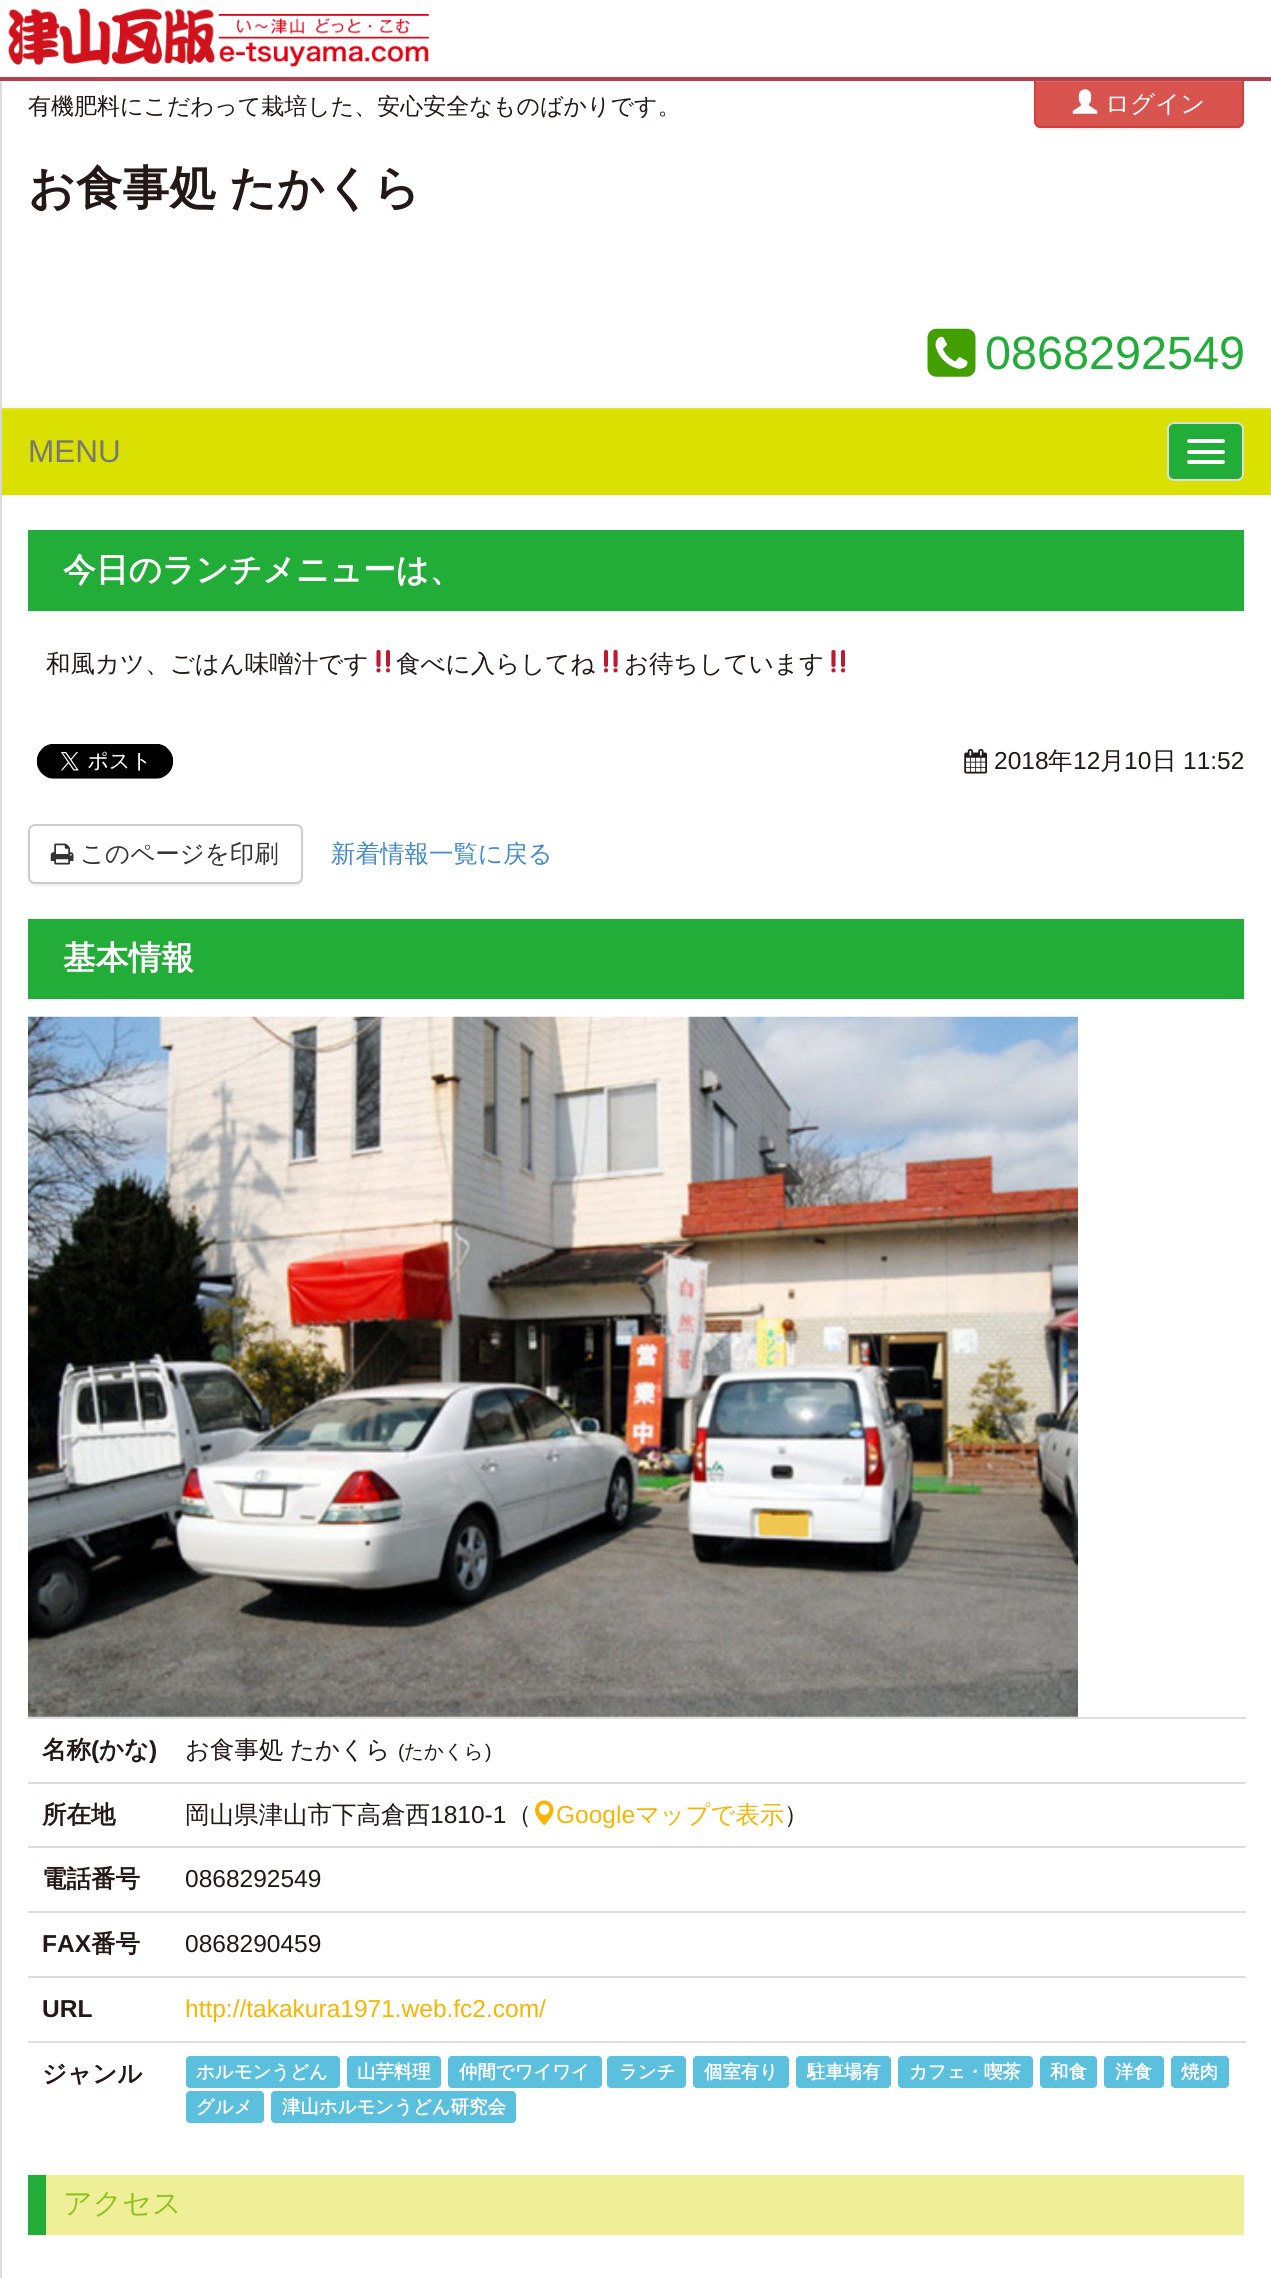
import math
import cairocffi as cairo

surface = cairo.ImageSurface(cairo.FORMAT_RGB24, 1271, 2278)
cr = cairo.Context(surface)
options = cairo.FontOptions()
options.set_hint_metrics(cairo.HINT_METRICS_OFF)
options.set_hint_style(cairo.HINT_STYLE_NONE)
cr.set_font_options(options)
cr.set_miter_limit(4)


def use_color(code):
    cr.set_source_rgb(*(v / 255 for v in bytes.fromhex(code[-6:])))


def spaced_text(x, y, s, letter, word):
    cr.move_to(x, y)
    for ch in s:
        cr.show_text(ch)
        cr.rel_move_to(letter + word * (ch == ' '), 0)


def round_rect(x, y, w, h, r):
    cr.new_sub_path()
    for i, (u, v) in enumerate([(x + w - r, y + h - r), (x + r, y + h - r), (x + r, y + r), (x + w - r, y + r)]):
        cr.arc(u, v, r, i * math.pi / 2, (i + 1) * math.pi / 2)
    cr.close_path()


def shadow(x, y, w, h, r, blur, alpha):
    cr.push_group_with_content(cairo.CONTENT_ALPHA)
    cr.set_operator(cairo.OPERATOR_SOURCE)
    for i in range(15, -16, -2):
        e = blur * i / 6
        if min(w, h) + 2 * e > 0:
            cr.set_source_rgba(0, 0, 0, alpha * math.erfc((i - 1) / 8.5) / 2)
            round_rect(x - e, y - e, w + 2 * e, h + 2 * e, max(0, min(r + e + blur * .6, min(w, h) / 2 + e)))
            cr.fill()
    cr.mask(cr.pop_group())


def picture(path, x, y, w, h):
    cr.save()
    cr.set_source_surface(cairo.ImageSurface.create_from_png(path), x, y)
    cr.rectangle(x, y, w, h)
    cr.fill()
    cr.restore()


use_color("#ffffff")
cr.paint()
use_color("#b5404b")
cr.rectangle(0, 77, 1271, 4)
cr.fill()
picture("img1.png", 8, 8, 421, 59)
use_color("#dcdcdc")
cr.rectangle(0, 81, 2, 414)
cr.fill()
cr.select_font_face("WenQuanYi Zen Hei Medium")
cr.set_font_size(23)
use_color("#231815")
cr.move_to(28, 114)
cr.show_text("有機肥料にこだわって栽培した、安心安全なものばかりです。")
use_color("#000000")
shadow(1034, 82, 210, 48, 7, 1, 0.07)
use_color("#d9534f")
cr.new_path()
cr.move_to(1034, 81)
cr.line_to(1244, 81)
cr.line_to(1244, 121)
cr.curve_to(1244, 125, 1241, 128, 1237, 128)
cr.line_to(1041, 128)
cr.curve_to(1037, 128, 1034, 125, 1034, 121)
cr.close_path()
cr.fill()
use_color("#df6d69")
cr.new_path()
cr.move_to(1036, 82)
cr.line_to(1242, 82)
cr.line_to(1242, 122)
cr.line_to(1242, 125)
cr.curve_to(1242, 124, 1243, 122, 1243, 121)
cr.line_to(1243, 81)
cr.line_to(1036, 81)
cr.close_path()
cr.fill()
use_color("#d43f3a")
cr.set_fill_rule(cairo.FILL_RULE_EVEN_ODD)
cr.new_path()
cr.move_to(1034, 80)
cr.line_to(1244, 80)
cr.line_to(1244, 121)
cr.curve_to(1244, 125, 1241, 128, 1237, 128)
cr.line_to(1041, 128)
cr.curve_to(1037, 128, 1034, 125, 1034, 121)
cr.close_path()
cr.move_to(1036, 80)
cr.line_to(1242, 80)
cr.line_to(1242, 121)
cr.curve_to(1242, 124, 1240, 126, 1237, 126)
cr.line_to(1041, 126)
cr.curve_to(1038, 126, 1036, 124, 1036, 121)
cr.close_path()
cr.fill()
picture("img2.png", 1072, 89, 26, 25)
cr.set_font_size(24.5)
use_color("#ffffff")
cr.move_to(1105, 112)
cr.show_text("ログイン")
cr.select_font_face("WenQuanYi Zen Hei", cairo.FONT_SLANT_NORMAL, cairo.FONT_WEIGHT_BOLD)
cr.set_font_size(46.75)
use_color("#231815")
spaced_text(28, 204, "お食事処 たかくら", 0, -1)
picture("img3.png", 927, 328, 49, 49)
cr.select_font_face("Liberation Sans")
use_color("#22ac38")
cr.move_to(985, 369)
cr.show_text("0868292549")
use_color("#000000")
shadow(2, 410, 1269, 87, 0, 4.5, 0.07)
use_color("#dae000")
cr.rectangle(2, 410, 1269, 85)
cr.fill()
use_color("#e0e526")
cr.rectangle(2, 408, 1269, 2)
cr.fill()
cr.set_font_size(31.5)
use_color("#777777")
cr.move_to(28, 462)
cr.show_text("MENU")
use_color("#22ac38")
round_rect(1168, 423, 75, 57, 6)
cr.fill_preserve()
use_color("#dddddd")
cr.stroke()
use_color("#ffffff")
round_rect(1187, 439, 38, 4, 2)
cr.fill()
round_rect(1187, 450, 38, 4, 2)
cr.fill()
round_rect(1187, 460, 38, 4, 2)
cr.fill()
cr.rectangle(2, 495, 1269, 7)
cr.fill()
use_color("#dcdcdc")
cr.rectangle(0, 495, 2, 1783)
cr.fill()
use_color("#22ac38")
cr.rectangle(28, 530, 1216, 81)
cr.fill()
cr.select_font_face("WenQuanYi Zen Hei", cairo.FONT_SLANT_NORMAL, cairo.FONT_WEIGHT_BOLD)
cr.set_font_size(32.75)
use_color("#ffffff")
cr.move_to(63, 581)
cr.show_text("今日のランチメニューは、")
cr.select_font_face("WenQuanYi Zen Hei Medium")
cr.set_font_size(24.5)
use_color("#231815")
cr.move_to(46, 672)
cr.show_text("和風カツ、ごはん味噌汁です")
picture("img4.png", 376, 650, 14, 23)
cr.move_to(396, 672)
cr.show_text("食べに入らしてね")
picture("img5.png", 604, 650, 14, 23)
cr.move_to(624, 672)
cr.show_text("お待ちしています")
picture("img4.png", 831, 650, 14, 23)
picture("img6.png", 36, 744, 138, 35)
picture("img7.png", 964, 749, 23, 25)
cr.select_font_face("Liberation Sans")
cr.move_to(994, 769)
cr.show_text("2018")
cr.select_font_face("WenQuanYi Zen Hei Medium")
cr.move_to(1048, 769)
cr.show_text("年")
cr.select_font_face("Liberation Sans")
cr.move_to(1073, 769)
cr.show_text("12")
cr.select_font_face("WenQuanYi Zen Hei Medium")
cr.move_to(1100, 769)
cr.show_text("月")
cr.select_font_face("Liberation Sans")
cr.move_to(1124, 769)
cr.show_text("10")
cr.select_font_face("WenQuanYi Zen Hei Medium")
cr.move_to(1152, 769)
cr.show_text("日")
cr.select_font_face("Liberation Sans")
cr.move_to(1183, 769)
cr.show_text("11:52")
use_color("#000000")
shadow(28, 826, 275, 60, 7, 1, 0.07)
use_color("#ffffff")
round_rect(29, 825, 273, 58, 6)
cr.fill_preserve()
use_color("#cccccc")
cr.stroke()
picture("img8.png", 50, 843, 24, 22)
cr.select_font_face("WenQuanYi Zen Hei Medium")
use_color("#333333")
cr.move_to(80, 862)
cr.show_text("このページを印刷")
use_color("#428bca")
cr.move_to(331, 862)
cr.show_text("新着情報一覧に戻る")
use_color("#22ac38")
cr.rectangle(28, 919, 1216, 80)
cr.fill()
cr.select_font_face("WenQuanYi Zen Hei", cairo.FONT_SLANT_NORMAL, cairo.FONT_WEIGHT_BOLD)
cr.set_font_size(32.75)
use_color("#ffffff")
cr.move_to(63, 969)
cr.show_text("基本情報")
picture("img9.png", 28, 1016, 1050, 701)
cr.set_font_size(24.5)
use_color("#231815")
cr.move_to(42, 1758)
cr.show_text("名称")
cr.select_font_face("Liberation Sans", cairo.FONT_SLANT_NORMAL, cairo.FONT_WEIGHT_BOLD)
cr.move_to(91, 1758)
cr.show_text("(")
cr.select_font_face("WenQuanYi Zen Hei", cairo.FONT_SLANT_NORMAL, cairo.FONT_WEIGHT_BOLD)
cr.move_to(99, 1758)
cr.show_text("かな")
cr.select_font_face("Liberation Sans", cairo.FONT_SLANT_NORMAL, cairo.FONT_WEIGHT_BOLD)
cr.move_to(149, 1758)
cr.show_text(")")
use_color("#dddddd")
cr.rectangle(28, 1717, 1218, 2)
cr.fill()
cr.select_font_face("WenQuanYi Zen Hei Medium")
use_color("#231815")
spaced_text(185, 1758, "お食事処 たかくら", 0, -1)
cr.select_font_face("Liberation Sans")
cr.set_font_size(19.5)
cr.move_to(398, 1758)
cr.show_text("(")
cr.select_font_face("WenQuanYi Zen Hei Medium")
cr.move_to(404, 1758)
cr.show_text("たかくら")
cr.select_font_face("Liberation Sans")
cr.move_to(485, 1758)
cr.show_text(")")
cr.select_font_face("WenQuanYi Zen Hei", cairo.FONT_SLANT_NORMAL, cairo.FONT_WEIGHT_BOLD)
cr.set_font_size(24.5)
cr.move_to(42, 1823)
cr.show_text("所在地")
use_color("#dddddd")
cr.rectangle(28, 1782, 1218, 2)
cr.fill()
cr.select_font_face("WenQuanYi Zen Hei Medium")
use_color("#231815")
cr.move_to(185, 1823)
cr.show_text("岡山県津山市下高倉西")
cr.select_font_face("Liberation Sans")
cr.move_to(430, 1823)
cr.show_text("1810-1")
cr.select_font_face("WenQuanYi Zen Hei Medium")
cr.move_to(507, 1823)
cr.show_text("（")
picture("img10.png", 535, 1800, 19, 26)
cr.select_font_face("Liberation Sans")
use_color("#f8b500")
cr.move_to(556, 1823)
cr.show_text("Google")
cr.select_font_face("WenQuanYi Zen Hei Medium")
cr.move_to(635, 1823)
cr.show_text("マップで表示")
use_color("#231815")
cr.move_to(784, 1823)
cr.show_text("）")
cr.select_font_face("WenQuanYi Zen Hei", cairo.FONT_SLANT_NORMAL, cairo.FONT_WEIGHT_BOLD)
cr.move_to(42, 1887)
cr.show_text("電話番号")
use_color("#dddddd")
cr.rectangle(28, 1846, 1218, 2)
cr.fill()
cr.select_font_face("Liberation Sans")
use_color("#231815")
cr.move_to(185, 1887)
cr.show_text("0868292549")
cr.select_font_face("Liberation Sans", cairo.FONT_SLANT_NORMAL, cairo.FONT_WEIGHT_BOLD)
cr.move_to(42, 1952)
cr.show_text("FAX")
cr.select_font_face("WenQuanYi Zen Hei", cairo.FONT_SLANT_NORMAL, cairo.FONT_WEIGHT_BOLD)
cr.move_to(91, 1952)
cr.show_text("番号")
use_color("#dddddd")
cr.rectangle(28, 1911, 1218, 2)
cr.fill()
cr.select_font_face("Liberation Sans")
use_color("#231815")
cr.move_to(185, 1952)
cr.show_text("0868290459")
cr.select_font_face("Liberation Sans", cairo.FONT_SLANT_NORMAL, cairo.FONT_WEIGHT_BOLD)
cr.move_to(42, 2017)
cr.show_text("URL")
use_color("#dddddd")
cr.rectangle(28, 1976, 1218, 2)
cr.fill()
cr.select_font_face("Liberation Sans")
use_color("#f8b500")
cr.move_to(185, 2017)
cr.show_text("http://takakura1971.web.fc2.com/")
cr.select_font_face("WenQuanYi Zen Hei", cairo.FONT_SLANT_NORMAL, cairo.FONT_WEIGHT_BOLD)
use_color("#231815")
cr.move_to(42, 2082)
cr.show_text("ジャンル")
use_color("#dddddd")
cr.rectangle(28, 2041, 1218, 2)
cr.fill()
use_color("#5bc0de")
round_rect(186, 2056, 154, 32, 4)
cr.fill()
cr.set_font_size(18.4)
use_color("#ffffff")
cr.move_to(196, 2078)
cr.show_text("ホルモンうどん")
use_color("#5bc0de")
round_rect(347, 2056, 94, 32, 4)
cr.fill()
use_color("#ffffff")
cr.move_to(357, 2078)
cr.show_text("山芋料理")
use_color("#5bc0de")
round_rect(448, 2056, 154, 32, 4)
cr.fill()
use_color("#ffffff")
cr.move_to(459, 2078)
cr.show_text("仲間でワイワイ")
use_color("#5bc0de")
round_rect(607, 2056, 79, 32, 4)
cr.fill()
use_color("#ffffff")
cr.move_to(619, 2078)
cr.show_text("ランチ")
use_color("#5bc0de")
round_rect(693, 2056, 96, 32, 4)
cr.fill()
use_color("#ffffff")
cr.move_to(704, 2078)
cr.show_text("個室有り")
use_color("#5bc0de")
round_rect(796, 2056, 95, 32, 4)
cr.fill()
use_color("#ffffff")
cr.move_to(807, 2078)
cr.show_text("駐車場有")
use_color("#5bc0de")
round_rect(898, 2056, 135, 32, 4)
cr.fill()
use_color("#ffffff")
cr.move_to(909, 2078)
cr.show_text("カフェ・喫茶")
use_color("#5bc0de")
round_rect(1040, 2056, 57, 32, 4)
cr.fill()
use_color("#ffffff")
cr.move_to(1050, 2078)
cr.show_text("和食")
use_color("#5bc0de")
round_rect(1104, 2056, 60, 32, 4)
cr.fill()
use_color("#ffffff")
cr.move_to(1115, 2078)
cr.show_text("洋食")
use_color("#5bc0de")
round_rect(1171, 2056, 58, 32, 4)
cr.fill()
use_color("#ffffff")
cr.move_to(1181, 2078)
cr.show_text("焼肉")
use_color("#5bc0de")
round_rect(186, 2091, 78, 32, 4)
cr.fill()
use_color("#ffffff")
cr.move_to(196, 2113)
cr.show_text("グルメ")
use_color("#5bc0de")
round_rect(271, 2091, 245, 32, 4)
cr.fill()
use_color("#ffffff")
cr.move_to(282, 2113)
cr.show_text("津山ホルモンうどん研究会")
use_color("#eeef97")
cr.rectangle(46, 2175, 1198, 60)
cr.fill()
use_color("#22ac38")
cr.rectangle(28, 2175, 18, 60)
cr.fill()
cr.select_font_face("WenQuanYi Zen Hei Medium")
cr.set_font_size(29)
use_color("#8fc31f")
cr.move_to(63, 2213)
cr.show_text("アクセス")
surface.write_to_png("result.png")
